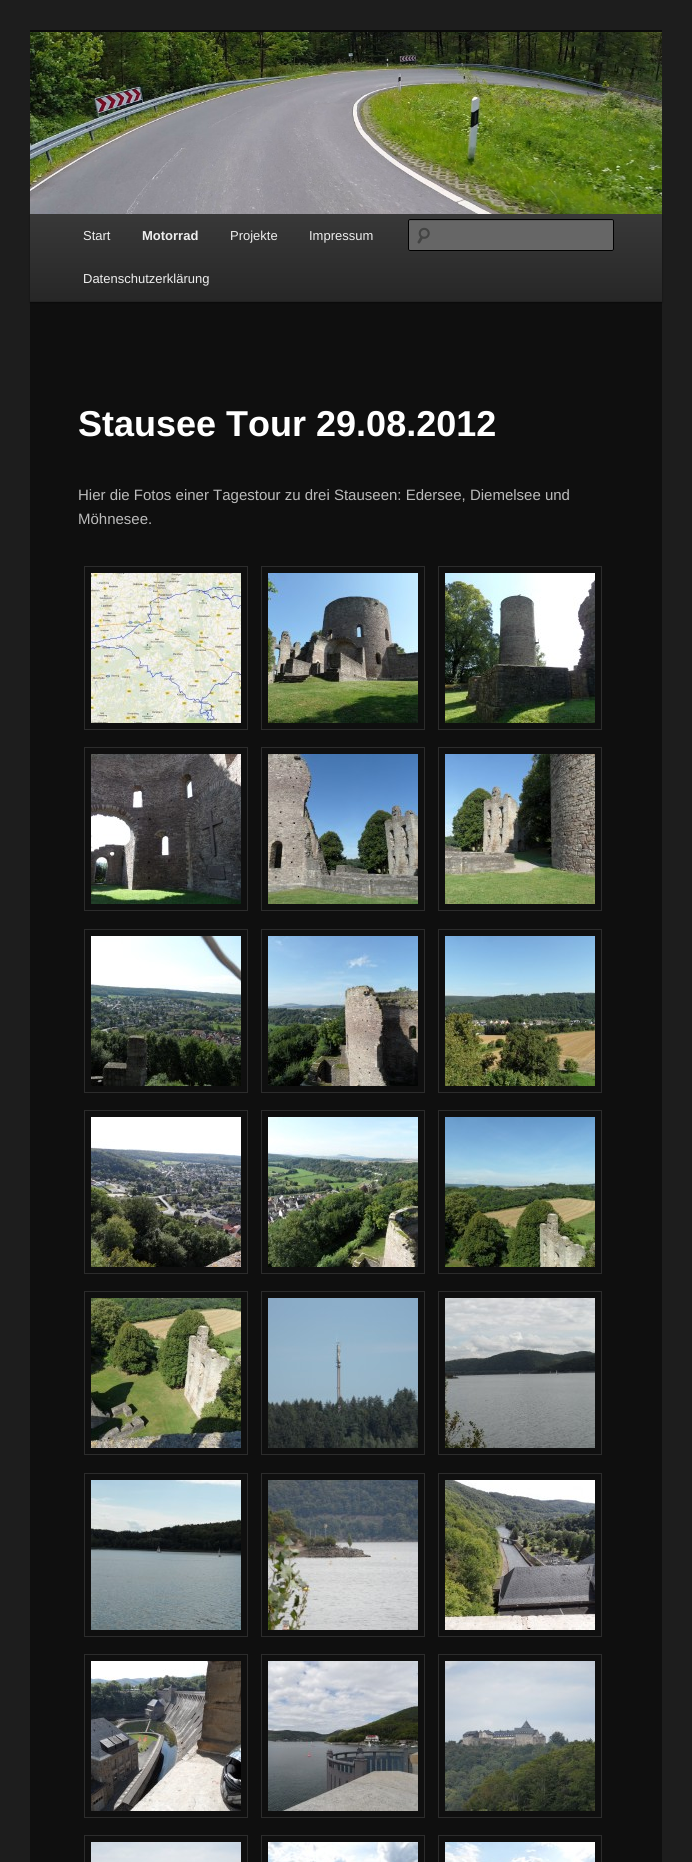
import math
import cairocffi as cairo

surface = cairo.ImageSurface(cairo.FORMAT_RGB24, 692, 1862)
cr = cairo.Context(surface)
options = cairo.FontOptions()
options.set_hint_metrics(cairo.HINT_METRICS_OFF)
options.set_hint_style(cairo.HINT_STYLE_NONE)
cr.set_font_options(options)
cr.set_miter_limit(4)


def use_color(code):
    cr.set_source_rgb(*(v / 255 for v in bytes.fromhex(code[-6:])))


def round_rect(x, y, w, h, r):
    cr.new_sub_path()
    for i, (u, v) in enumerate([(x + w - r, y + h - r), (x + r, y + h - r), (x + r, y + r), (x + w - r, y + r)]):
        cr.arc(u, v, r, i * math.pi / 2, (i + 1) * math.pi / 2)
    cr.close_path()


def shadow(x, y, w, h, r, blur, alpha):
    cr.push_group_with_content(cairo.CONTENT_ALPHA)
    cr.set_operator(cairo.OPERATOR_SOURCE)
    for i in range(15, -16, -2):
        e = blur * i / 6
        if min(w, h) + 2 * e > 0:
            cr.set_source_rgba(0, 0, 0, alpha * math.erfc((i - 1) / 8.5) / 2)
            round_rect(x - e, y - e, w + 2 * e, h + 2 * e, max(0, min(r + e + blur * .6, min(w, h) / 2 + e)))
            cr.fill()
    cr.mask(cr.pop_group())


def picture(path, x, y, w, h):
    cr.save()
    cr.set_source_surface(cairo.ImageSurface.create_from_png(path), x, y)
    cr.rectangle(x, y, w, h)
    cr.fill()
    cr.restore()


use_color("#1d1d1d")
cr.paint()
use_color("#0f0f0f")
cr.rectangle(30, 302, 632, 1560)
cr.fill()
use_color("#0a0a0a")
cr.rectangle(30, 30, 632, 2)
cr.fill()
use_color("#000000")
shadow(30, 215, 632, 88, 0, 1, 0.4)
picture("img1.png", 30, 32, 632, 182)
gradient = cairo.LinearGradient(346, 214, 346, 301)
gradient.add_color_stop_rgba(0, 0.22, 0.22, 0.22, 1)
gradient.add_color_stop_rgba(1, 0.153, 0.153, 0.153, 1)
cr.set_source(gradient)
cr.rectangle(30, 214, 632, 87)
cr.fill()
use_color("#222222")
cr.rectangle(30, 301, 632, 1)
cr.fill()
cr.select_font_face("Liberation Sans")
cr.set_font_size(13)
use_color("#eeeeee")
cr.move_to(83, 240)
cr.show_text("Start")
cr.select_font_face("Liberation Sans", cairo.FONT_SLANT_NORMAL, cairo.FONT_WEIGHT_BOLD)
cr.move_to(142, 240)
cr.show_text("Motorrad")
cr.select_font_face("Liberation Sans")
cr.move_to(230, 240)
cr.show_text("Projekte")
cr.move_to(309, 240)
cr.show_text("Impressum")
cr.move_to(83, 283)
cr.show_text("Datenschutzerklärung")
use_color("#666666")
round_rect(408, 219, 206, 32, 2)
cr.fill()
picture("img2.png", 417, 227, 13, 17)
use_color("#5c5c5c")
cr.new_path()
cr.move_to(410, 221)
cr.line_to(613, 221)
cr.line_to(613, 222)
cr.curve_to(613, 221, 613, 220, 612, 220)
cr.line_to(410, 220)
cr.line_to(409, 220)
cr.line_to(409, 222)
cr.curve_to(409, 221, 409, 221, 410, 221)
cr.close_path()
cr.fill()
round_rect(408.5, 219.5, 205, 31, 1.5)
use_color("#000000")
cr.set_line_width(1)
cr.stroke()
cr.select_font_face("Liberation Sans", cairo.FONT_SLANT_NORMAL, cairo.FONT_WEIGHT_BOLD)
cr.set_font_size(36)
use_color("#ffffff")
cr.move_to(78, 436)
cr.show_text("Stausee Tour 29.08.2012")
cr.select_font_face("Liberation Sans")
cr.set_font_size(15)
use_color("#bbbbbb")
cr.move_to(78, 500)
cr.show_text("Hier die Fotos einer Tagestour zu drei Stauseen: Edersee, Diemelsee und")
cr.move_to(78, 524)
cr.show_text("Möhnesee.")
cr.rectangle(84.5, 566.5, 163, 163)
use_color("#2c2c2c")
cr.stroke()
picture("img3.png", 91, 573, 150, 150)
cr.rectangle(261.5, 566.5, 163, 163)
cr.stroke()
picture("img4.png", 268, 573, 150, 150)
cr.rectangle(438.5, 566.5, 163, 163)
cr.stroke()
picture("img5.png", 445, 573, 150, 150)
cr.rectangle(84.5, 747.5, 163, 163)
cr.stroke()
picture("img6.png", 91, 754, 150, 150)
cr.rectangle(261.5, 747.5, 163, 163)
cr.stroke()
picture("img7.png", 268, 754, 150, 150)
cr.rectangle(438.5, 747.5, 163, 163)
cr.stroke()
picture("img8.png", 445, 754, 150, 150)
cr.rectangle(84.5, 929.5, 163, 163)
cr.stroke()
picture("img9.png", 91, 936, 150, 150)
cr.rectangle(261.5, 929.5, 163, 163)
cr.stroke()
picture("img10.png", 268, 936, 150, 150)
cr.rectangle(438.5, 929.5, 163, 163)
cr.stroke()
picture("img11.png", 445, 936, 150, 150)
cr.rectangle(84.5, 1110.5, 163, 163)
cr.stroke()
picture("img12.png", 91, 1117, 150, 150)
cr.rectangle(261.5, 1110.5, 163, 163)
cr.stroke()
picture("img13.png", 268, 1117, 150, 150)
cr.rectangle(438.5, 1110.5, 163, 163)
cr.stroke()
picture("img14.png", 445, 1117, 150, 150)
cr.rectangle(84.5, 1291.5, 163, 163)
cr.stroke()
picture("img15.png", 91, 1298, 150, 150)
cr.rectangle(261.5, 1291.5, 163, 163)
cr.stroke()
picture("img16.png", 268, 1298, 150, 150)
cr.rectangle(438.5, 1291.5, 163, 163)
cr.stroke()
picture("img17.png", 445, 1298, 150, 150)
cr.rectangle(84.5, 1473.5, 163, 163)
cr.stroke()
picture("img18.png", 91, 1480, 150, 150)
cr.rectangle(261.5, 1473.5, 163, 163)
cr.stroke()
picture("img19.png", 268, 1480, 150, 150)
cr.rectangle(438.5, 1473.5, 163, 163)
cr.stroke()
picture("img20.png", 445, 1480, 150, 150)
cr.rectangle(84.5, 1654.5, 163, 163)
cr.stroke()
picture("img21.png", 91, 1661, 150, 150)
cr.rectangle(261.5, 1654.5, 163, 163)
cr.stroke()
picture("img22.png", 268, 1661, 150, 150)
cr.rectangle(438.5, 1654.5, 163, 163)
cr.stroke()
picture("img23.png", 445, 1661, 150, 150)
cr.rectangle(84.5, 1835.5, 163, 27)
cr.stroke()
picture("img24.png", 91, 1842, 150, 20)
cr.rectangle(261.5, 1835.5, 163, 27)
cr.stroke()
picture("img25.png", 268, 1842, 150, 20)
cr.rectangle(438.5, 1835.5, 163, 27)
cr.stroke()
picture("img26.png", 445, 1842, 150, 20)
surface.write_to_png("result.png")
